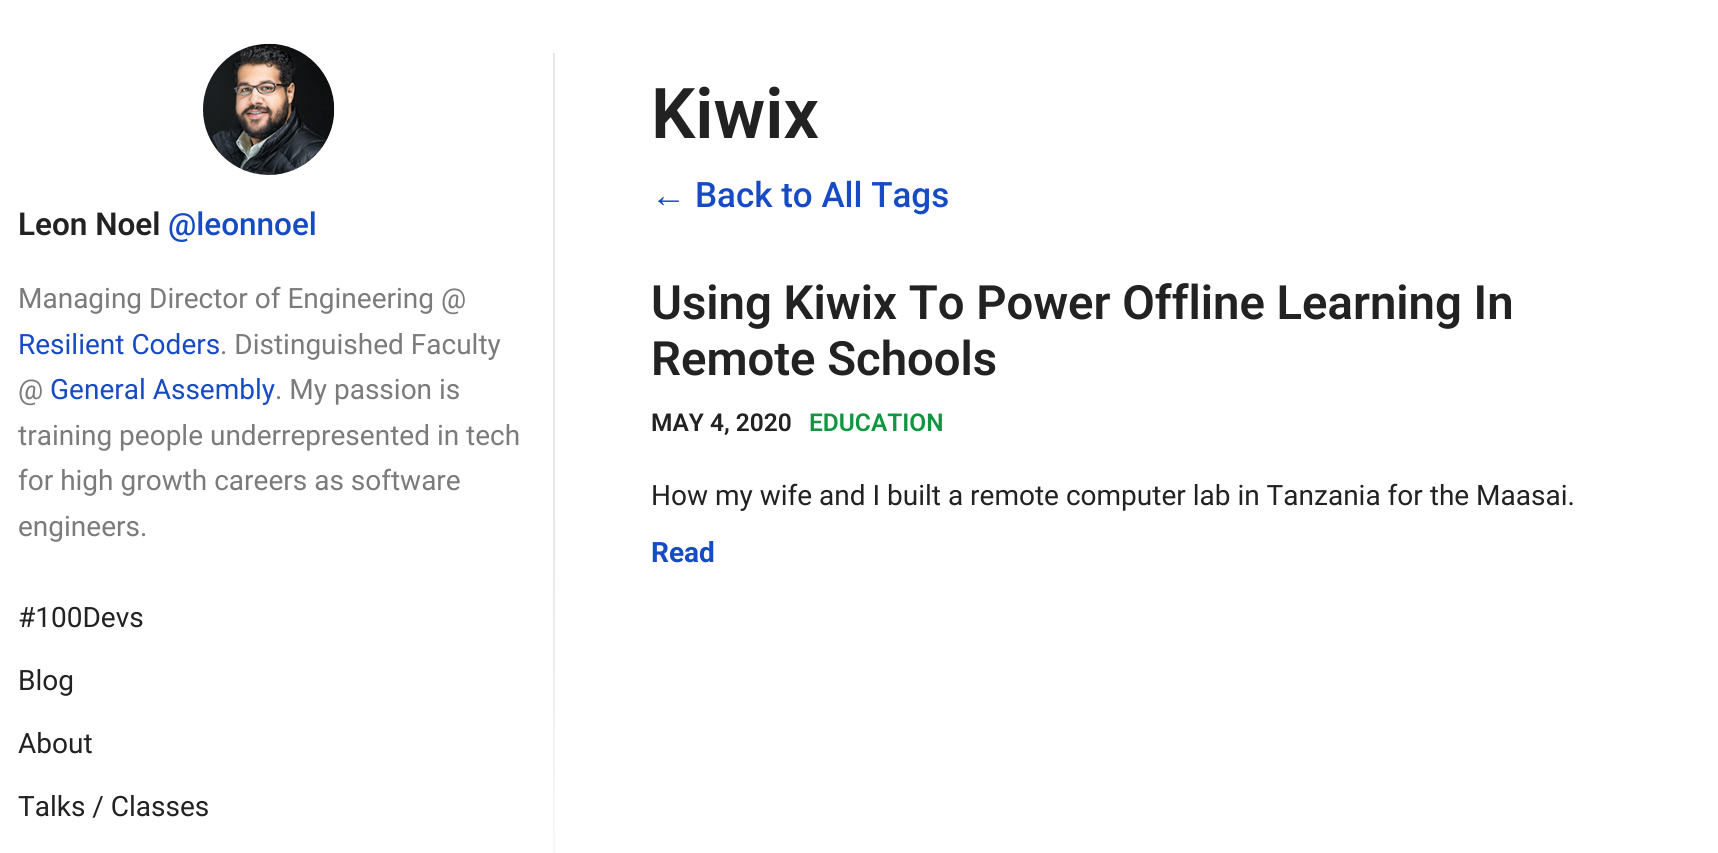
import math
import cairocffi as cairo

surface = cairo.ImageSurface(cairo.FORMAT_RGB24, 1718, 853)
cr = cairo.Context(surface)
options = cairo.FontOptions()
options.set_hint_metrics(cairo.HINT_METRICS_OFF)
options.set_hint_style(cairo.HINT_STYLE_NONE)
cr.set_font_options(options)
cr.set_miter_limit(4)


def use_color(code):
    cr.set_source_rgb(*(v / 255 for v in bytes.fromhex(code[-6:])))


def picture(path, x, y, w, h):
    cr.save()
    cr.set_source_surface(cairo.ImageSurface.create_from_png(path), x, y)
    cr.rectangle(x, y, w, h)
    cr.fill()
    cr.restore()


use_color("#ffffff")
cr.paint()
picture("img1.png", 203, 43, 132, 132)
cr.select_font_face("Roboto SemiBold")
cr.set_font_size(31.5)
use_color("#222222")
cr.move_to(18, 235)
cr.show_text("Leon Noel")
cr.select_font_face("Roboto Medium")
use_color("#164bc5")
cr.move_to(168, 235)
cr.show_text("@leonnoel")
cr.select_font_face("Roboto")
cr.set_font_size(28)
use_color("#7b7b7b")
cr.move_to(18, 308)
cr.show_text("Managing Director of Engineering @")
use_color("#164bc5")
cr.move_to(18, 354)
cr.show_text("Resilient Coders")
use_color("#7b7b7b")
cr.move_to(220, 354)
cr.show_text(". Distinguished Faculty")
cr.move_to(18, 399)
cr.show_text("@")
use_color("#164bc5")
cr.move_to(50, 399)
cr.show_text("General Assembly")
use_color("#7b7b7b")
cr.move_to(275, 399)
cr.show_text(". My passion is")
cr.move_to(18, 445)
cr.show_text("training people underrepresented in tech")
cr.move_to(18, 490)
cr.show_text("for high growth careers as software")
cr.move_to(18, 536)
cr.show_text("engineers.")
gradient = cairo.LinearGradient(554, 53, 554, 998)
gradient.add_color_stop_rgba(0, 0.902, 0.902, 0.902, 1)
gradient.add_color_stop_rgba(0.48, 0.902, 0.902, 0.902, 1)
gradient.add_color_stop_rgba(1, 1, 1, 1, 1)
cr.set_source(gradient)
cr.rectangle(553, 53, 2, 800)
cr.fill()
use_color("#222222")
cr.move_to(18, 627)
cr.show_text("#100Devs")
cr.move_to(18, 690)
cr.show_text("Blog")
cr.move_to(18, 753)
cr.show_text("About")
cr.move_to(18, 816)
cr.show_text("Talks / Classes")
cr.select_font_face("Roboto SemiBold")
cr.set_font_size(70)
cr.move_to(651, 138)
cr.show_text("Kiwix")
cr.select_font_face("Liberation Sans")
cr.set_font_size(35)
use_color("#164bc5")
cr.move_to(651, 207)
cr.show_text("←")
cr.select_font_face("Roboto Medium")
cr.move_to(695, 207)
cr.show_text("Back to All Tags")
cr.select_font_face("Roboto SemiBold")
cr.set_font_size(47.25)
use_color("#222222")
cr.move_to(651, 319)
cr.show_text("Using Kiwix To Power Offline Learning In")
cr.move_to(651, 375)
cr.show_text("Remote Schools")
cr.set_font_size(24.5)
cr.move_to(651, 431)
cr.show_text("MAY 4, 2020")
use_color("#0f9640")
cr.move_to(809, 431)
cr.show_text("EDUCATION")
cr.select_font_face("Roboto")
cr.set_font_size(28)
use_color("#222222")
cr.move_to(651, 505)
cr.show_text("How my wife and I built a remote computer lab in Tanzania for the Maasai.")
cr.select_font_face("Roboto", cairo.FONT_SLANT_NORMAL, cairo.FONT_WEIGHT_BOLD)
use_color("#164bc5")
cr.move_to(651, 562)
cr.show_text("Read")
surface.write_to_png("result.png")
